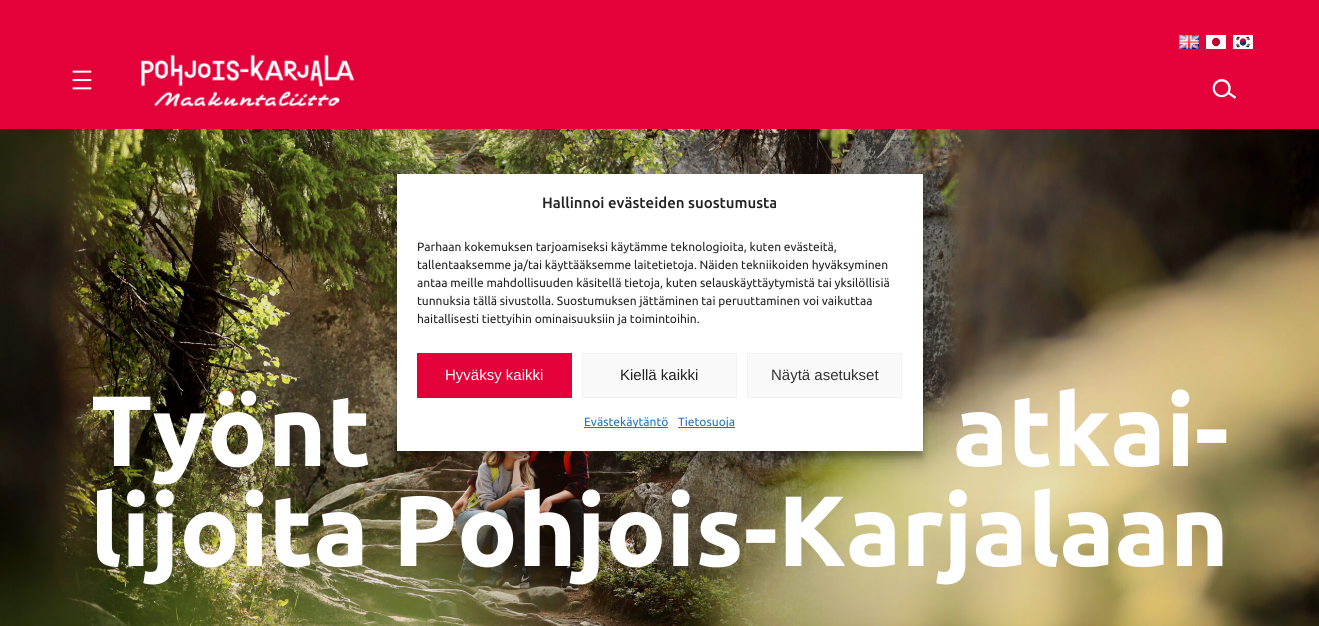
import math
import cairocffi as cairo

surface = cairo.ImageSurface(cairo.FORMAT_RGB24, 1319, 626)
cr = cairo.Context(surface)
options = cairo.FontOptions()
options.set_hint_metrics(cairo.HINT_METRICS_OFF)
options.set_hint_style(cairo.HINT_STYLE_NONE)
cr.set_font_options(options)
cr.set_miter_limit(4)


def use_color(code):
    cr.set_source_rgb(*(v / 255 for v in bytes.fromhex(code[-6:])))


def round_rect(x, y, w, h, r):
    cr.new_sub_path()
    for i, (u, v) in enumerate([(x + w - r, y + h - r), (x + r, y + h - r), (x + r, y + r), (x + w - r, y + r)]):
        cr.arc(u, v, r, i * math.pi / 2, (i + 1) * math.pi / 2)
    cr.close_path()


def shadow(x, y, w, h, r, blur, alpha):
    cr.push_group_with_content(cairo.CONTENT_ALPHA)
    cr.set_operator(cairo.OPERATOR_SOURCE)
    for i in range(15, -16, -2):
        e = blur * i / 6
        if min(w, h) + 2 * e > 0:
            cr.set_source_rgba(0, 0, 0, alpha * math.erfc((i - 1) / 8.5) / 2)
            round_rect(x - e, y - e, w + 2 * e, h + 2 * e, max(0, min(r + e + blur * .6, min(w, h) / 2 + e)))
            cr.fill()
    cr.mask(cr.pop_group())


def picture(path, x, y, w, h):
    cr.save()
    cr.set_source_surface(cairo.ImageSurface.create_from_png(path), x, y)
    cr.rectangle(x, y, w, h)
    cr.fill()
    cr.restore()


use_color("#e4013a")
cr.paint()
picture("img7.png", 0, 129, 1319, 497)
use_color("#000000")
shadow(397, 180, 526, 277, 0, 3, 0.23)
shadow(397, 184, 526, 277, 0, 10, 0.19)
use_color("#ffffff")
cr.rectangle(397, 174, 526, 277)
cr.fill()
cr.select_font_face("Ubuntu Medium")
cr.set_font_size(15)
use_color("#222222")
cr.move_to(542, 208)
cr.show_text("Hallinnoi evästeiden suostumusta")
cr.select_font_face("Ubuntu")
cr.set_font_size(12)
cr.move_to(417, 251)
cr.show_text("Parhaan kokemuksen tarjoamiseksi käytämme teknologioita, kuten evästeitä,")
cr.move_to(417, 269)
cr.show_text("tallentaaksemme ja/tai käyttääksemme laitetietoja. Näiden tekniikoiden hyväksyminen")
cr.move_to(417, 287)
cr.show_text("antaa meille mahdollisuuden käsitellä tietoja, kuten selauskäyttäytymistä tai yksilöllisiä")
cr.move_to(417, 305)
cr.show_text("tunnuksia tällä sivustolla. Suostumuksen jättäminen tai peruuttaminen voi vaikuttaa")
cr.move_to(417, 323)
cr.show_text("haitallisesti tiettyihin ominaisuuksiin ja toimintoihin.")
use_color("#e4013a")
cr.rectangle(417, 353, 155, 45)
cr.fill()
cr.select_font_face("Liberation Sans")
cr.set_font_size(15)
use_color("#ffffff")
cr.move_to(445, 380)
cr.show_text("Hyväksy kaikki")
use_color("#f9f9f9")
cr.rectangle(582.5, 353.5, 154, 44)
cr.fill_preserve()
use_color("#f2f2f2")
cr.set_line_width(1)
cr.stroke()
use_color("#222222")
cr.move_to(620, 380)
cr.show_text("Kiellä kaikki")
use_color("#f9f9f9")
cr.rectangle(747.5, 353.5, 154, 44)
cr.fill_preserve()
use_color("#f2f2f2")
cr.stroke()
use_color("#333333")
cr.move_to(771, 380)
cr.show_text("Näytä asetukset")
use_color("#1e73be")
cr.rectangle(584, 427, 84, 1)
cr.fill()
cr.select_font_face("Ubuntu")
cr.set_font_size(12)
cr.move_to(584, 426)
cr.show_text("Evästekäytäntö")
cr.rectangle(678, 427, 57, 1)
cr.fill()
cr.move_to(678, 426)
cr.show_text("Tietosuoja")
picture("img1.png", 72, 70, 20, 20)
picture("img2.png", 141, 54, 214, 53)
picture("img3.png", 1179, 35, 20, 14)
picture("img4.png", 1206, 35, 20, 14)
picture("img5.png", 1233, 35, 20, 14)
picture("img6.png", 1212, 79, 25, 20)
cr.select_font_face("Ubuntu", cairo.FONT_SLANT_NORMAL, cairo.FONT_WEIGHT_BOLD)
cr.set_font_size(100)
use_color("#ffffff")
cr.move_to(91, 466)
cr.show_text("Työnt")
cr.move_to(953, 466)
cr.show_text("atkai-")
cr.move_to(90, 566)
cr.show_text("lijoita Pohjois-Karjalaan")
surface.write_to_png("result.png")
